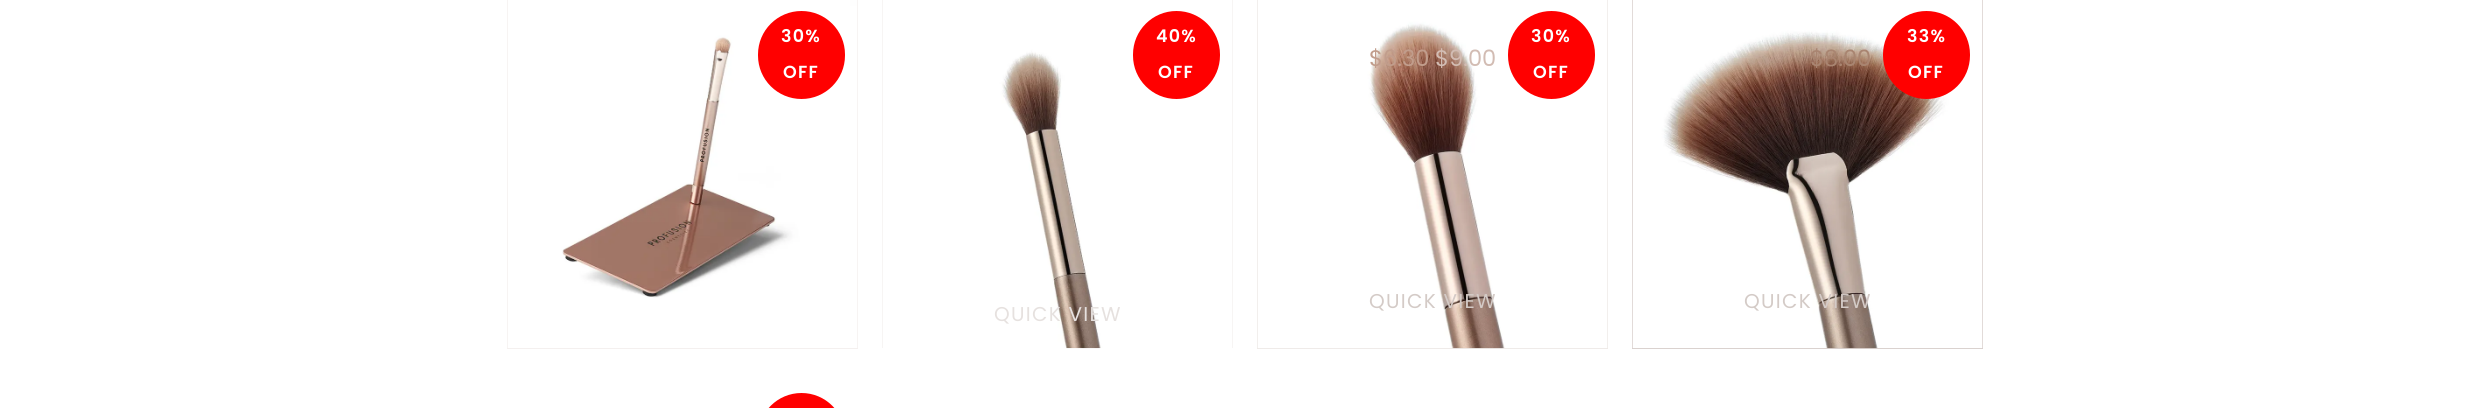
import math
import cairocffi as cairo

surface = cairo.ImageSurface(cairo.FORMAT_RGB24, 2490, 408)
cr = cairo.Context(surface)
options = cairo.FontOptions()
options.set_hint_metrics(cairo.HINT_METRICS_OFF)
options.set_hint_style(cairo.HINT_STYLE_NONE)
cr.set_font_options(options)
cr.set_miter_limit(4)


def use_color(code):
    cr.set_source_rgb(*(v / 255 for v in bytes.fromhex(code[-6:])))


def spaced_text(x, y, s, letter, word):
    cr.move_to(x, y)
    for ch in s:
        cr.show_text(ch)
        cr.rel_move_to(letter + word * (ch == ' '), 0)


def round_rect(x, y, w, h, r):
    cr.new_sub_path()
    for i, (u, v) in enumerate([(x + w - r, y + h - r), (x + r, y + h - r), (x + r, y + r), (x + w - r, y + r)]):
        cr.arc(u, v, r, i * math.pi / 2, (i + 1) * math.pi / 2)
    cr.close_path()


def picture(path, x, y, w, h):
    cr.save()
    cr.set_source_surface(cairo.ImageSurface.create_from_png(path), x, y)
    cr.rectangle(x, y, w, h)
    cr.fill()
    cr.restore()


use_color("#ffffff")
cr.paint()
use_color("#f4f0ef")
cr.rectangle(507, 0, 351, 349)
cr.fill()
picture("img1.png", 507, 0, 351, 348)
cr.select_font_face("Poppins")
cr.set_font_size(22.5)
use_color("#f9f5f3")
cr.move_to(717, 53)
cr.show_text(".")
use_color("#ff0000")
round_rect(758, 11, 87, 88, 43.5)
cr.fill()
cr.select_font_face("Poppins SemiBold")
cr.set_font_size(17.5)
use_color("#ffffff")
spaced_text(781, 42, "30%", 1.25, 0)
spaced_text(783, 78, "OFF", 1.25, 0)
use_color("#f7f5f4")
cr.rectangle(882, 0, 351, 348)
cr.fill()
picture("img2.png", 883, 0, 349, 349)
use_color("#ff0000")
round_rect(1133, 11, 87, 88, 43.5)
cr.fill()
use_color("#ffffff")
spaced_text(1156, 42, "40%", 1.25, 0)
spaced_text(1158, 78, "OFF", 1.25, 0)
cr.select_font_face("Poppins")
cr.set_font_size(20)
use_color("#e6e1df")
spaced_text(994, 321, "QUICK VIEW", 1.25, 0)
use_color("#eeeae7")
cr.rectangle(1257, 0, 351, 349)
cr.fill()
picture("img3.png", 1257, 0, 351, 349)
cr.set_font_size(22.5)
use_color("#c19d8c")
cr.move_to(1369, 66)
cr.show_text("$6.30")
use_color("#d2bcb3")
cr.move_to(1435, 66)
cr.show_text("$9.00")
cr.set_font_size(20)
use_color("#d4cbc7")
spaced_text(1369, 308, "QUICK VIEW", 1.25, 0)
use_color("#ff0000")
round_rect(1508, 11, 87, 88, 43.5)
cr.fill()
cr.select_font_face("Poppins SemiBold")
cr.set_font_size(17.5)
use_color("#ffffff")
spaced_text(1531, 42, "30%", 1.25, 0)
spaced_text(1533, 78, "OFF", 1.25, 0)
use_color("#d8cfcc")
cr.rectangle(1632, 0, 351, 349)
cr.fill()
picture("img4.png", 1632, 0, 351, 349)
cr.select_font_face("Poppins")
cr.set_font_size(22.5)
use_color("#a98571")
cr.move_to(1810, 66)
cr.show_text("$8.00")
cr.set_font_size(20)
use_color("#d4cbc7")
spaced_text(1744, 308, "QUICK VIEW", 1.25, 0)
use_color("#ff0000")
round_rect(1883, 11, 87, 88, 43.5)
cr.fill()
cr.select_font_face("Poppins SemiBold")
cr.set_font_size(17.5)
use_color("#ffffff")
spaced_text(1907, 42, "33%", 1.25, 0)
spaced_text(1908, 78, "OFF", 1.25, 0)
use_color("#ff0000")
round_rect(758, 393, 87, 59, 43.5)
cr.fill()
surface.write_to_png("result.png")
